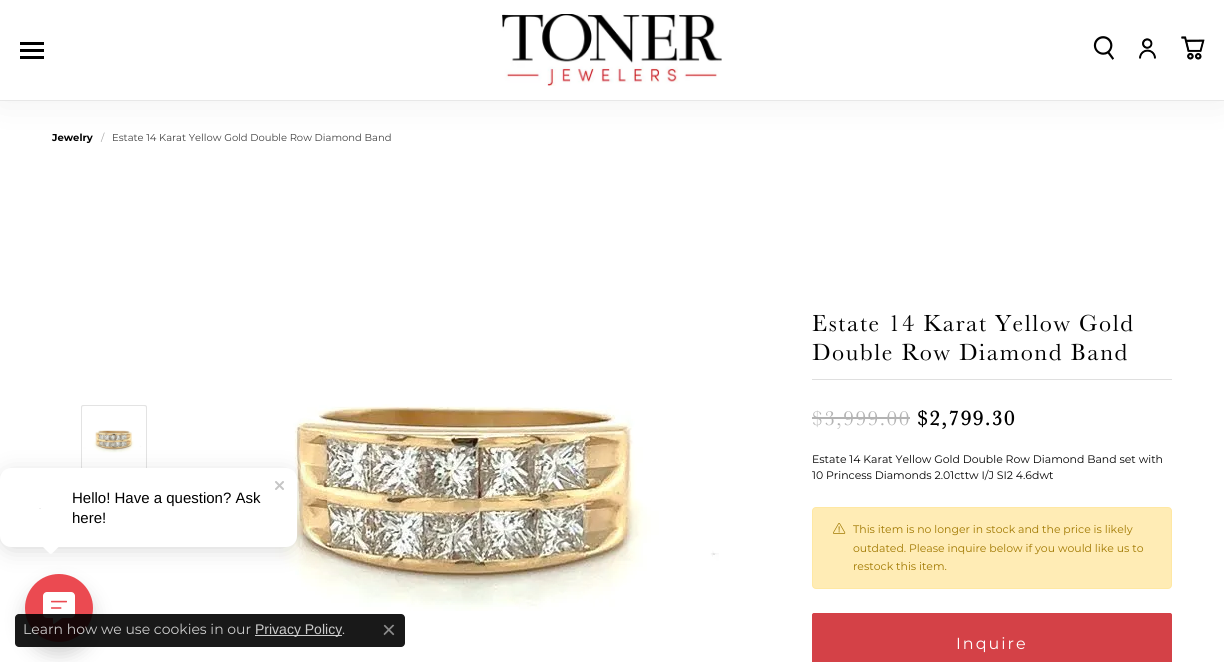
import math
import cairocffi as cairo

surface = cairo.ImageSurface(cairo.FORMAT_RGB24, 1224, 662)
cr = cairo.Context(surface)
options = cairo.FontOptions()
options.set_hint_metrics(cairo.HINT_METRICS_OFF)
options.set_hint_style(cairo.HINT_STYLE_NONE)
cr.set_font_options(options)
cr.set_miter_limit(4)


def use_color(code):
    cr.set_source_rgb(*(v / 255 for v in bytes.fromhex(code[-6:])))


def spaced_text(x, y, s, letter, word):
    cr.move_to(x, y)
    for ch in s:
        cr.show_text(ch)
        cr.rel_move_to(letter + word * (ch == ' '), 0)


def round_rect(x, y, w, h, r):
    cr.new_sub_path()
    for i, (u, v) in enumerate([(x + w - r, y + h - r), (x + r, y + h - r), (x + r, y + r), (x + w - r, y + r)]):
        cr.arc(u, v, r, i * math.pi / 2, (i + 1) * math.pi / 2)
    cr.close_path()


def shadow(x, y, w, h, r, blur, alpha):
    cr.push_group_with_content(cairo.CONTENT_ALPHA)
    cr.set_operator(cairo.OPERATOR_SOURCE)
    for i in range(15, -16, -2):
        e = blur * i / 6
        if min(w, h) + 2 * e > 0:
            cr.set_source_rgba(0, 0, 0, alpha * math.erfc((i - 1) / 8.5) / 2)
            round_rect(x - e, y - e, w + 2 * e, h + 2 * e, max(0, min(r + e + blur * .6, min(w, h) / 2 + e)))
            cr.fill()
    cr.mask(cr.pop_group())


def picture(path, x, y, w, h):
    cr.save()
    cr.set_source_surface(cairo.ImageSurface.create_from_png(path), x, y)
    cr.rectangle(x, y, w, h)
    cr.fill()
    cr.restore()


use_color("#ffffff")
cr.paint()
use_color("#000000")
shadow(0, 0, 1224, 100, 0, 20, 0.07)
cr.rectangle(-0.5, -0.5, 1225, 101)
cr.set_source_rgba(0, 0, 0, 0.07)
cr.set_line_width(1)
cr.stroke()
use_color("#ffffff")
cr.rectangle(0, 0, 1224, 100)
cr.fill()
use_color("#000000")
cr.rectangle(20, 42, 24, 3)
cr.fill()
cr.rectangle(20, 49, 24, 3)
cr.fill()
cr.rectangle(20, 56, 24, 3)
cr.fill()
picture("img1.png", 502, 14, 220, 72)
picture("img2.png", 1093, 36, 21, 24)
picture("img3.png", 1139, 38, 17, 21)
picture("img4.png", 1181, 36, 24, 24)
cr.select_font_face("Montserrat", cairo.FONT_SLANT_NORMAL, cairo.FONT_WEIGHT_BOLD)
cr.set_font_size(10)
cr.move_to(52, 141)
cr.show_text("Jewelry")
cr.select_font_face("Montserrat")
use_color("#a5a5a5")
cr.move_to(101, 141)
cr.show_text("/")
use_color("#404040")
cr.move_to(112, 141)
cr.show_text("Estate 14 Karat Yellow Gold Double Row Diamond Band")
use_color("#f5f5f5")
round_rect(81.5, 405.5, 65, 65, 1.5)
cr.fill_preserve()
use_color("#e3e3e3")
cr.stroke()
picture("img5.png", 82, 406, 64, 62)
picture("img6.png", 275, 404, 444, 207)
cr.select_font_face("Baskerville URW")
cr.set_font_size(24)
use_color("#000000")
spaced_text(812, 331, "Estate 14 Karat Yellow Gold", 1.6, 0)
spaced_text(812, 360, "Double Row Diamond Band", 1.6, 0)
use_color("#dfdfdf")
cr.rectangle(812, 379, 360, 1)
cr.fill()
cr.set_font_size(21)
use_color("#b3b3b3")
spaced_text(812, 425, "$3,999.00", 1.6, 0)
cr.rectangle(812, 417, 98, 2)
cr.fill()
cr.select_font_face("Baskerville URW", cairo.FONT_SLANT_NORMAL, cairo.FONT_WEIGHT_BOLD)
use_color("#000000")
spaced_text(917, 425, "$2,799.30", 1.6, 0)
cr.select_font_face("Montserrat")
cr.set_font_size(10.9)
cr.move_to(812, 463)
cr.show_text("Estate 14 Karat Yellow Gold Double Row Diamond Band set with")
cr.move_to(812, 479)
cr.show_text("10 Princess Diamonds 2.01cttw I/J SI2 4.6dwt")
use_color("#ffecb5")
round_rect(812, 507, 360, 82, 4)
cr.fill()
round_rect(812.5, 507.5, 359, 81, 3.5)
cr.set_source_rgba(1, 0.757, 0.027, 0.1)
cr.stroke()
picture("img7.png", 833, 523, 13, 11)
use_color("#a07800")
cr.move_to(853, 533)
cr.show_text("This item is no longer in stock and the price is likely")
cr.move_to(853, 552)
cr.show_text("outdated. Please inquire below if you would like us to")
cr.move_to(853, 570)
cr.show_text("restock this item.")
use_color("#d44147")
round_rect(812.5, 613.5, 359, 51, 1.5)
cr.fill_preserve()
cr.stroke()
cr.set_font_size(16)
use_color("#ffffff")
spaced_text(956, 649, "Inquire", 2, 0)
use_color("#000000")
shadow(25, 586, 68, 68, 34, 9.5, 0.18)
use_color("#eb4a51")
cr.arc(59, 608, 34, 0, 2 * math.pi)
cr.fill()
use_color("#000000")
shadow(4, 476, 289, 71, 7, 12, 0.18)
use_color("#ffffff")
round_rect(0, 468, 297, 79, 11)
cr.fill()
picture("img8.png", 275, 481, 9, 9)
picture("img9.png", 39, 508, 2, 1)
cr.select_font_face("Liberation Sans")
cr.set_font_size(15)
use_color("#000000")
cr.move_to(72, 503)
cr.show_text("Hello! Have a question? Ask")
cr.move_to(72, 523)
cr.show_text("here!")
use_color("#ffffff")
cr.set_fill_rule(cairo.FILL_RULE_EVEN_ODD)
cr.new_path()
cr.move_to(40, 544)
cr.line_to(48, 552)
cr.curve_to(50.5, 554.5, 51, 554.5, 53.5, 552)
cr.line_to(61.5, 544)
cr.close_path()
cr.fill()
picture("img10.png", 43, 592, 32, 32)
cr.set_source_rgba(0, 0, 0, 0.9)
round_rect(15, 614, 390, 33, 4)
cr.fill()
cr.select_font_face("Montserrat")
cr.set_font_size(14)
use_color("#cccccc")
cr.move_to(23, 634)
cr.show_text("Learn how we use cookies in our")
cr.rectangle(255, 635, 87, 1)
cr.fill()
cr.select_font_face("Liberation Sans")
cr.move_to(255, 634)
cr.show_text("Privacy Policy")
cr.select_font_face("Montserrat")
cr.move_to(342, 634)
cr.show_text(".")
picture("img11.png", 383, 624, 12, 12)
surface.write_to_png("result.png")
